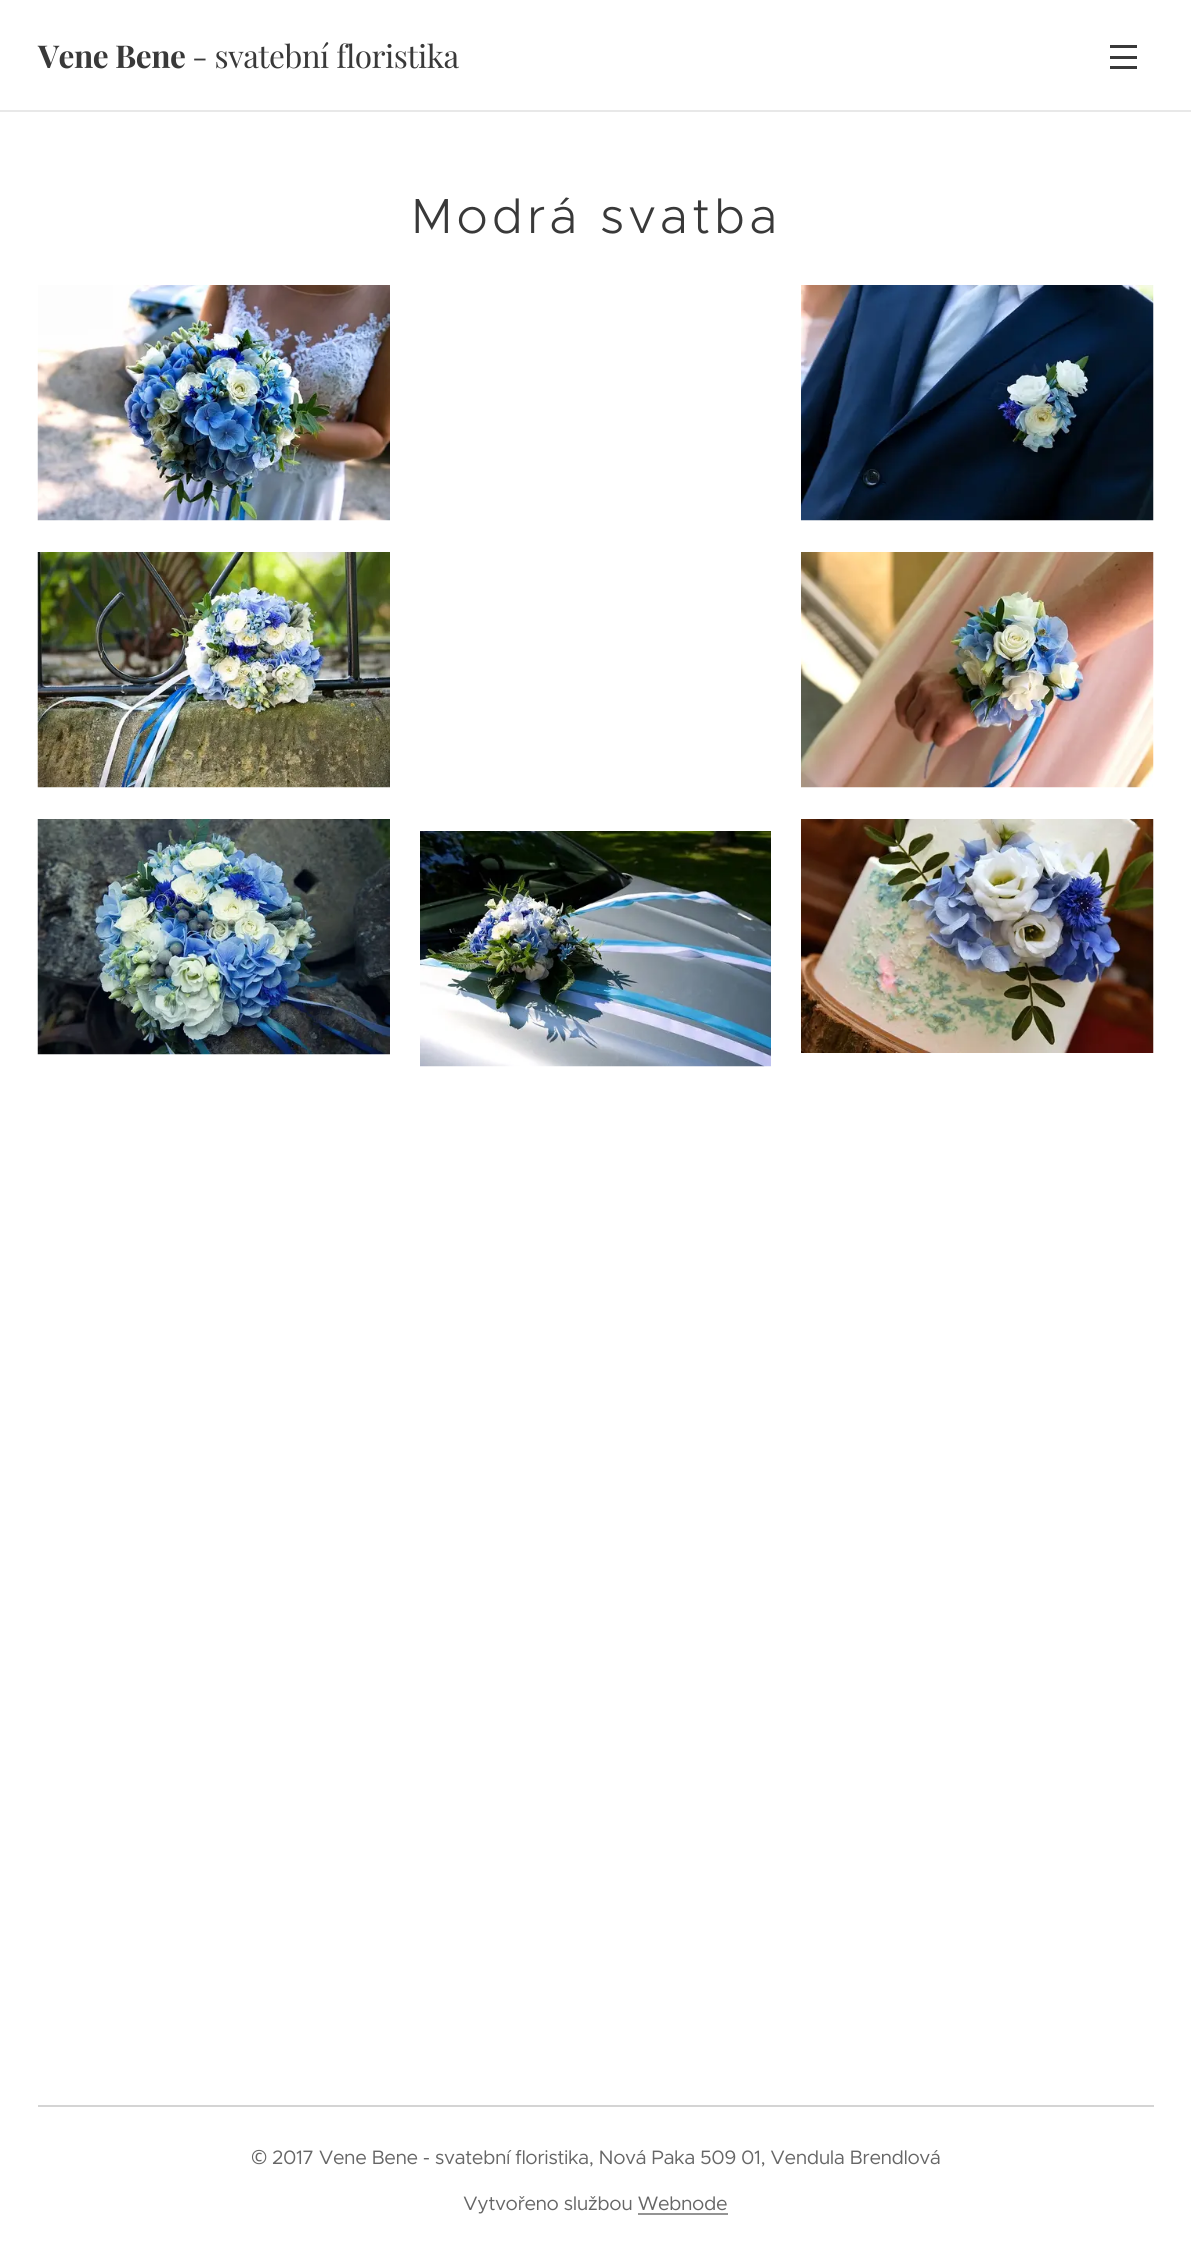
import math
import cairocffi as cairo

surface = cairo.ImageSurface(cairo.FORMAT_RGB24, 1191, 2257)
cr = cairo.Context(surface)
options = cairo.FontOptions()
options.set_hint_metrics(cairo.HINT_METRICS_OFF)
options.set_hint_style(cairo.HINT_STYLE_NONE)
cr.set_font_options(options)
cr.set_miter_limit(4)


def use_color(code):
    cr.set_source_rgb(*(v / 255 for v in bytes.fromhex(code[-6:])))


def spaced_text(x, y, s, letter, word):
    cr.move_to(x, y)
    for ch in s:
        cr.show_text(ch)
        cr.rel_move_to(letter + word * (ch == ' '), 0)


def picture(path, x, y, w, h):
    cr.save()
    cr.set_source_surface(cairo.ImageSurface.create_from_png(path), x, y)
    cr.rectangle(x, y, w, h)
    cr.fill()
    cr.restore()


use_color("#ffffff")
cr.paint()
cr.select_font_face("Playfair Display", cairo.FONT_SLANT_NORMAL, cairo.FONT_WEIGHT_BOLD)
cr.set_font_size(31.5)
use_color("#393939")
spaced_text(38, 68, "Vene Bene", -0.48, 0)
cr.select_font_face("Playfair Display")
spaced_text(192, 68, "- svatební floristika", -0.48, 0)
cr.rectangle(1110, 56, 27, 3)
cr.fill()
cr.rectangle(1110, 45, 27, 3)
cr.fill()
cr.rectangle(1110, 66, 27, 3)
cr.fill()
use_color("#e8e8e8")
cr.rectangle(0, 110, 1191, 2)
cr.fill()
cr.select_font_face("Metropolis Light")
cr.set_font_size(49.5)
use_color("#393939")
spaced_text(411, 233, "Modrá svatba", 4, 0)
picture("img1.png", 37, 285, 353, 236)
picture("img2.png", 801, 285, 353, 236)
picture("img3.png", 37, 552, 353, 236)
picture("img4.png", 801, 552, 353, 236)
picture("img5.png", 37, 819, 353, 236)
picture("img6.png", 420, 831, 351, 236)
picture("img7.png", 801, 819, 353, 234)
use_color("#d4d4d4")
cr.rectangle(38, 2105, 1116, 2)
cr.fill()
cr.select_font_face("Noto Sans")
cr.set_font_size(19.5)
use_color("#666666")
spaced_text(251, 2164, "©", -0.48, 0)
cr.select_font_face("Metropolis")
spaced_text(272, 2164, "2017 Vene Bene - svatební floristika, Nová Paka 509 01, Vendula Brendlová", -0.48, 0)
spaced_text(463, 2210, "Vytvořeno službou Webnode", -0.48, 0)
use_color("#949494")
cr.rectangle(638, 2213, 90, 2)
cr.fill()
surface.write_to_png("result.png")
